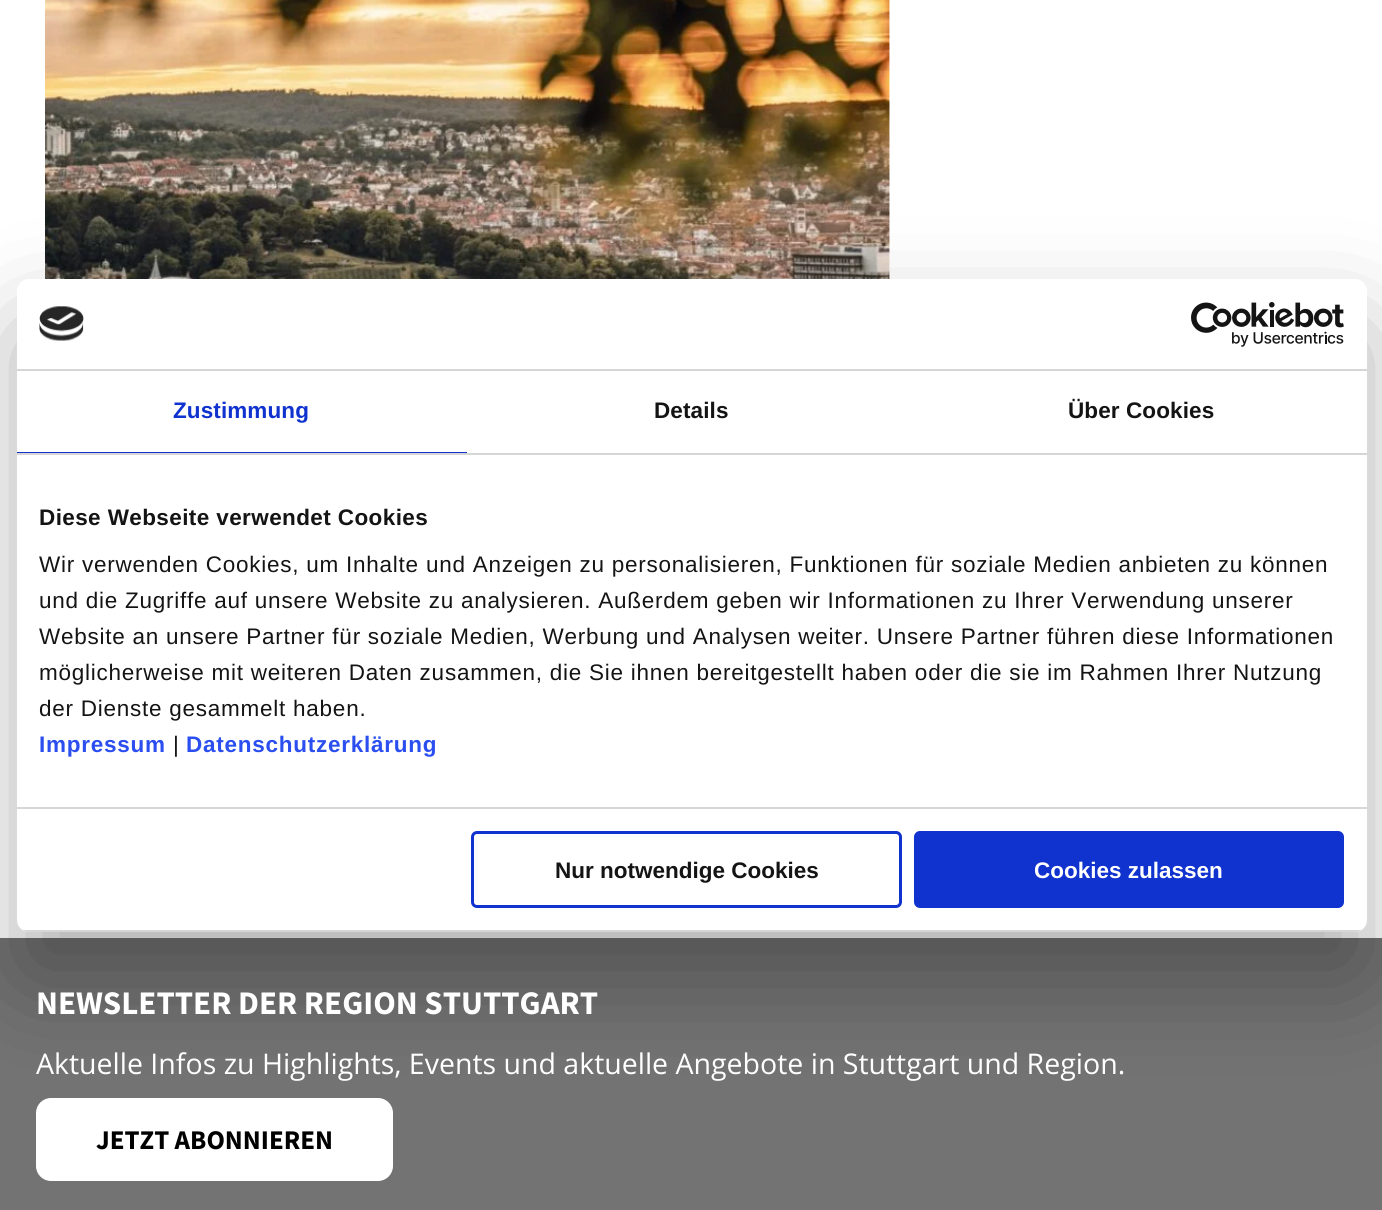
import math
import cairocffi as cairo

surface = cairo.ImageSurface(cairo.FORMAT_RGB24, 1382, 1210)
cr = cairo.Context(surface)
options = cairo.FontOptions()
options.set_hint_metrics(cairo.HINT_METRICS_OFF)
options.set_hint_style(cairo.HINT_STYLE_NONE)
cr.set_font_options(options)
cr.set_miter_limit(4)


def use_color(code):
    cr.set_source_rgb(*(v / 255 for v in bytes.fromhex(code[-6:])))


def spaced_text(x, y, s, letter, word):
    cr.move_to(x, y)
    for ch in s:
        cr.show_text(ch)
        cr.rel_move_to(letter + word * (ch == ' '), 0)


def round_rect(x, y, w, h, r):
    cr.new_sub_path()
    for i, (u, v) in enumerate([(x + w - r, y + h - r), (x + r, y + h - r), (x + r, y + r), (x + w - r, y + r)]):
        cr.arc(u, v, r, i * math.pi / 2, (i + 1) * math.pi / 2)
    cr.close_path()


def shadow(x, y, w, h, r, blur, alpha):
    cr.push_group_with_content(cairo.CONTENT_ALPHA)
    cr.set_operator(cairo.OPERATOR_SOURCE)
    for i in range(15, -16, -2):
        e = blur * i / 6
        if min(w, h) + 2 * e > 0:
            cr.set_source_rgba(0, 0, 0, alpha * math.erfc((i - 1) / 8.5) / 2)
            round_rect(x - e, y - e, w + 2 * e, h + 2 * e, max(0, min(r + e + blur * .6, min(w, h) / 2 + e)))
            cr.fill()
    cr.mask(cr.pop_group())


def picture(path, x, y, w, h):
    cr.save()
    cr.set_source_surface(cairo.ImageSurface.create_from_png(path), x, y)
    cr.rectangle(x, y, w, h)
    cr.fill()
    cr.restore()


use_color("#ffffff")
cr.paint()
picture("img3.png", 45, 0, 845, 279)
use_color("#737373")
cr.rectangle(0, 938, 1382, 272)
cr.fill()
use_color("#ffffff")
round_rect(36, 1098, 357, 83, 15)
cr.fill()
use_color("#000000")
shadow(17, 327, 1350, 653, 12, 51, 0.3)
use_color("#ffffff")
round_rect(17, 279, 1350, 653, 12)
cr.fill()
use_color("#d6d6d6")
cr.rectangle(17, 369, 1350, 2)
cr.fill()
picture("img1.png", 39, 306, 45, 35)
picture("img2.png", 1191, 302, 153, 45)
cr.rectangle(17, 453, 1350, 2)
cr.fill()
use_color("#1032cf")
cr.rectangle(17, 452, 450, 1)
cr.fill()
cr.select_font_face("Liberation Sans", cairo.FONT_SLANT_NORMAL, cairo.FONT_WEIGHT_BOLD)
cr.set_font_size(22.5)
spaced_text(173, 418, "Zustimmung", 0.1, 0)
use_color("#141414")
spaced_text(654, 418, "Details", 0.1, 0)
spaced_text(1068, 418, "Über Cookies", 0.1, 0)
use_color("#d6d6d6")
cr.rectangle(17, 807, 1350, 2)
cr.fill()
use_color("#141414")
spaced_text(39, 525, "Diese Webseite verwendet Cookies", 0.4, 0)
cr.select_font_face("Liberation Sans")
spaced_text(39, 572, "Wir verwenden Cookies, um Inhalte und Anzeigen zu personalisieren, Funktionen für soziale Medien anbieten zu können", 0.75, 0)
spaced_text(39, 608, "und die Zugriffe auf unsere Website zu analysieren. Außerdem geben wir Informationen zu Ihrer Verwendung unserer", 0.75, 0)
spaced_text(39, 644, "Website an unsere Partner für soziale Medien, Werbung und Analysen weiter. Unsere Partner führen diese Informationen", 0.75, 0)
spaced_text(39, 680, "möglicherweise mit weiteren Daten zusammen, die Sie ihnen bereitgestellt haben oder die sie im Rahmen Ihrer Nutzung", 0.75, 0)
spaced_text(39, 716, "der Dienste gesammelt haben.", 0.75, 0)
cr.select_font_face("Liberation Sans", cairo.FONT_SLANT_NORMAL, cairo.FONT_WEIGHT_BOLD)
use_color("#2a4eef")
spaced_text(39, 752, "Impressum", 0.75, 0)
cr.select_font_face("Liberation Sans")
use_color("#141414")
spaced_text(173, 752, "|", 0.75, 0)
cr.select_font_face("Liberation Sans", cairo.FONT_SLANT_NORMAL, cairo.FONT_WEIGHT_BOLD)
use_color("#2a4eef")
spaced_text(186, 752, "Datenschutzerklärung", 0.75, 0)
cr.save()
round_rect(17, 279, 1350, 653, 12)
cr.clip()
use_color("#d6d6d6")
cr.rectangle(17, 930, 1350, 2)
cr.fill()
cr.restore()
round_rect(472.5, 832.5, 428, 74, 4.5)
use_color("#1032cf")
cr.set_line_width(3)
cr.stroke()
use_color("#141414")
cr.move_to(555, 878)
cr.show_text("Nur notwendige Cookies")
use_color("#1032cf")
round_rect(915.5, 832.5, 427, 74, 4.5)
cr.fill_preserve()
cr.stroke()
use_color("#ffffff")
cr.move_to(1034, 878)
cr.show_text("Cookies zulassen")
cr.select_font_face("Source Sans Pro", cairo.FONT_SLANT_NORMAL, cairo.FONT_WEIGHT_BOLD)
cr.set_font_size(33)
cr.move_to(36, 1014)
cr.show_text("NEWSLETTER DER REGION STUTTGART")
cr.select_font_face("Open Sans")
cr.set_font_size(28.5)
cr.move_to(36, 1074)
cr.show_text("Aktuelle Infos zu Highlights, Events und aktuelle Angebote in Stuttgart und Region.")
cr.select_font_face("Source Sans Pro", cairo.FONT_SLANT_NORMAL, cairo.FONT_WEIGHT_BOLD)
cr.set_font_size(27)
use_color("#000000")
cr.move_to(96, 1149)
cr.show_text("JETZT ABONNIEREN")
surface.write_to_png("result.png")
